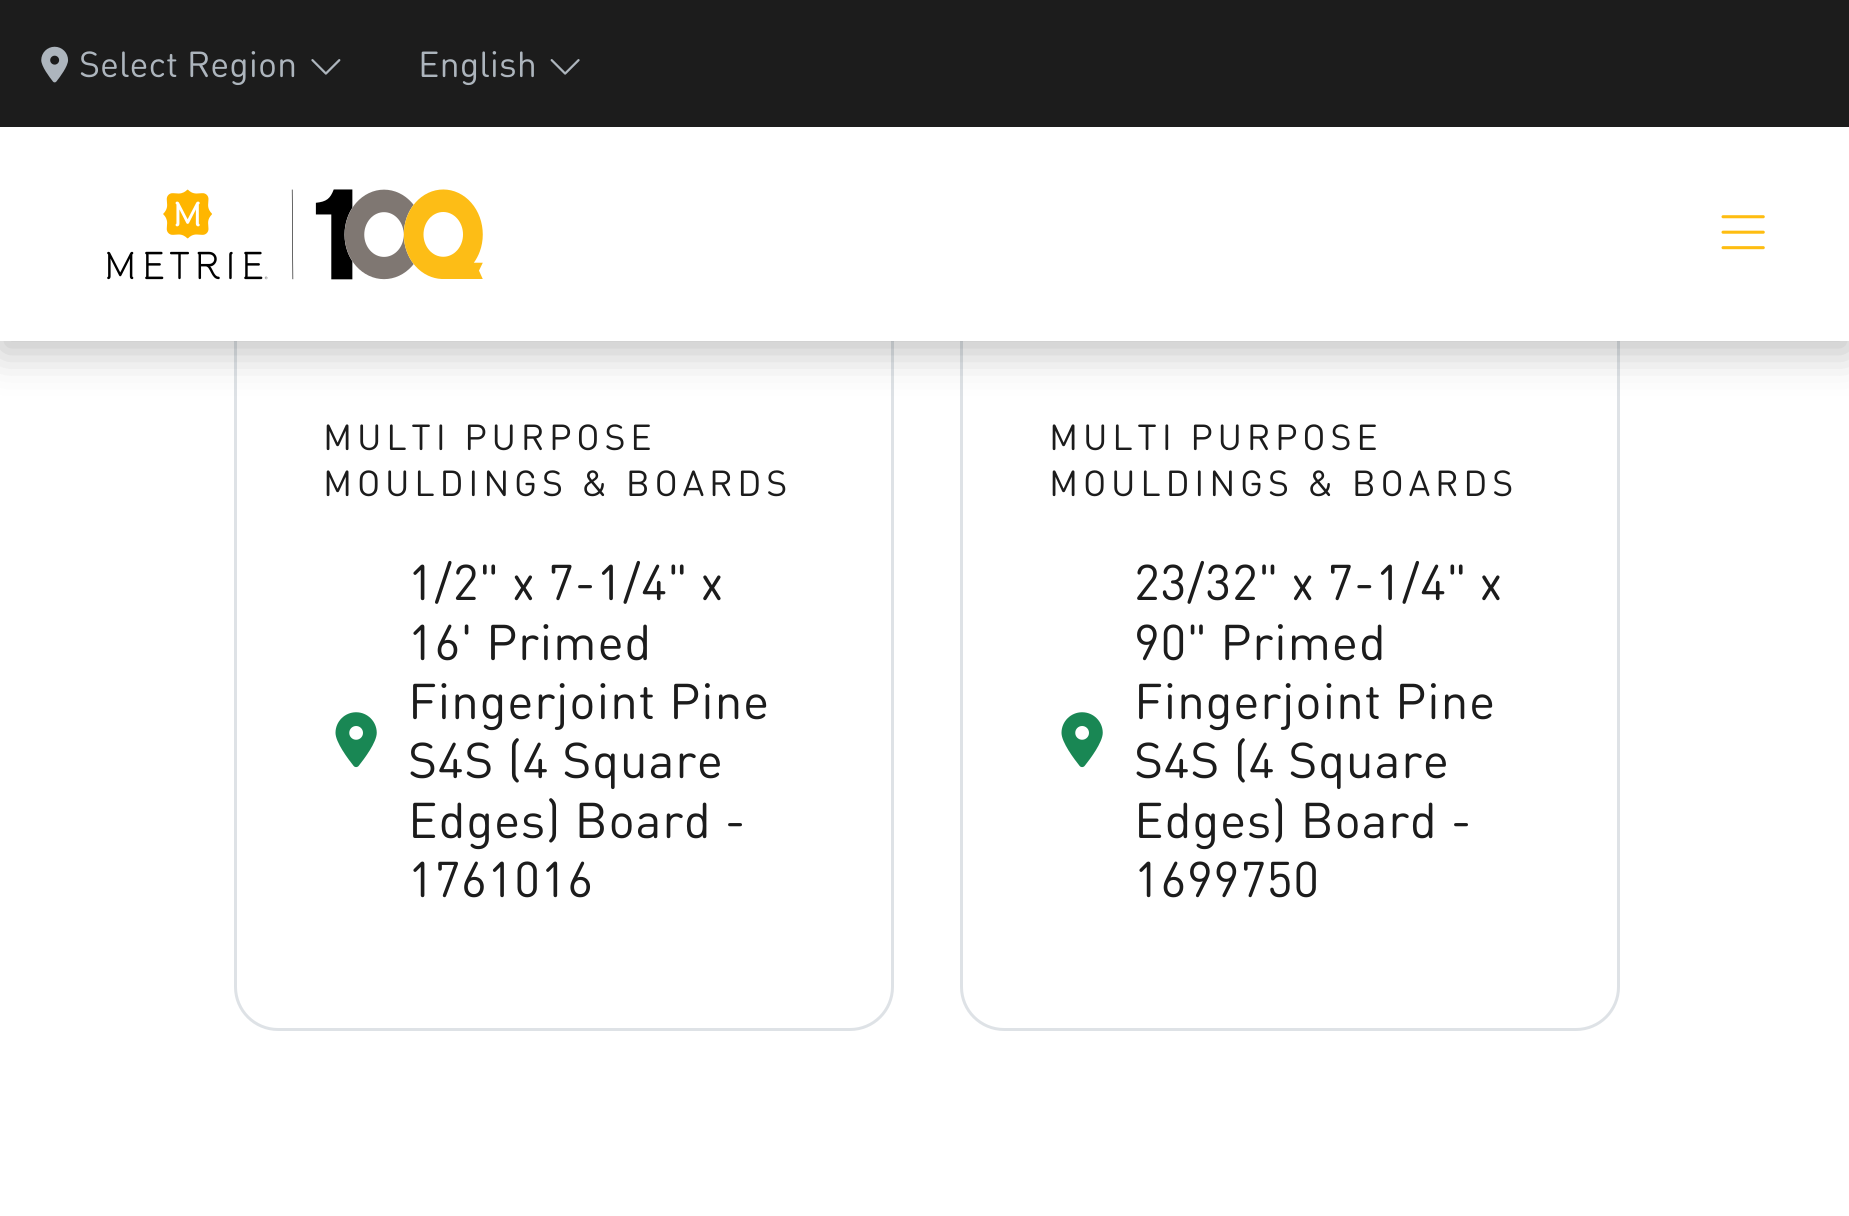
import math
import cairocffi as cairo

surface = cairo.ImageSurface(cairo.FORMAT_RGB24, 1849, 1216)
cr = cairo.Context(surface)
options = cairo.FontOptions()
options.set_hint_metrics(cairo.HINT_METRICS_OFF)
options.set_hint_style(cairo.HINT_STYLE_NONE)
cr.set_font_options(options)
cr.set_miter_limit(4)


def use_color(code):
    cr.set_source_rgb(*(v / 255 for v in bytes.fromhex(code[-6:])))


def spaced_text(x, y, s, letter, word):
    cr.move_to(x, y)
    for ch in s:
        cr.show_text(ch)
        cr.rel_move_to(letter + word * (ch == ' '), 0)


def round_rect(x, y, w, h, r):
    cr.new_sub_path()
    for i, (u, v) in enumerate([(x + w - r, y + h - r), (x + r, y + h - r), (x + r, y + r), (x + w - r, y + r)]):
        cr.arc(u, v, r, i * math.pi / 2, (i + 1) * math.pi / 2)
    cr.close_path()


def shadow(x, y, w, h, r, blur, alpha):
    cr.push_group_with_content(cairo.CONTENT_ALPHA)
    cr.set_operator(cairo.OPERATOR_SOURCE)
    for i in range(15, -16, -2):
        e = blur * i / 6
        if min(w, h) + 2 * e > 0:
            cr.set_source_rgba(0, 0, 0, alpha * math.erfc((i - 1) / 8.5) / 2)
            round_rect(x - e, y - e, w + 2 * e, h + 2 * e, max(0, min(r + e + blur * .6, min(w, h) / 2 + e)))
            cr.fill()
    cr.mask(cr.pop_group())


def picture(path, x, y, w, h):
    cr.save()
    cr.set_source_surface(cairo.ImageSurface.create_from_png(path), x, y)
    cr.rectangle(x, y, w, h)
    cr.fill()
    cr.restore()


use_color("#ffffff")
cr.paint()
round_rect(235.5, -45.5, 657, 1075, 42.5)
use_color("#dee2e6")
cr.set_line_width(3)
cr.stroke()
round_rect(961.5, -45.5, 657, 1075, 42.5)
cr.stroke()
use_color("#000000")
shadow(0, 138, 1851, 214, 0, 20.5, 0.25)
use_color("#1c1c1c")
cr.rectangle(0, 0, 1849, 127)
cr.fill()
picture("img1.png", 41, 46, 28, 37)
cr.select_font_face("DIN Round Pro")
cr.set_font_size(35.75)
use_color("#adb5bd")
cr.move_to(79, 77)
cr.show_text("Select Region")
picture("img2.png", 311, 59, 30, 16)
cr.move_to(418, 77)
cr.show_text("English")
picture("img3.png", 550, 59, 30, 16)
use_color("#ffffff")
cr.rectangle(0, 127, 1849, 214)
cr.fill()
picture("img4.png", 107, 189, 376, 91)
picture("img5.png", 1721, 215, 44, 35)
use_color("#1c1c1c")
spaced_text(323, 450, "MULTI PURPOSE", 4.75, 0)
spaced_text(323, 496, "MOULDINGS & BOARDS", 4.75, 0)
picture("img6.png", 335, 712, 42, 56)
cr.set_font_size(49.5)
spaced_text(408, 600, "1/2\" x 7-1/4\" x", 0.7, 0)
spaced_text(408, 660, "16' Primed", 0.7, 0)
spaced_text(408, 719, "Fingerjoint Pine", 0.7, 0)
spaced_text(408, 778, "S4S (4 Square", 0.7, 0)
spaced_text(408, 838, "Edges) Board -", 0.7, 0)
spaced_text(408, 897, "1761016", 0.7, 0)
cr.set_font_size(35.75)
spaced_text(1049, 450, "MULTI PURPOSE", 4.75, 0)
spaced_text(1049, 496, "MOULDINGS & BOARDS", 4.75, 0)
picture("img6.png", 1061, 712, 42, 56)
cr.set_font_size(49.5)
spaced_text(1134, 600, "23/32\" x 7-1/4\" x", 0.7, 0)
spaced_text(1134, 660, "90\" Primed", 0.7, 0)
spaced_text(1134, 719, "Fingerjoint Pine", 0.7, 0)
spaced_text(1134, 778, "S4S (4 Square", 0.7, 0)
spaced_text(1134, 838, "Edges) Board -", 0.7, 0)
spaced_text(1134, 897, "1699750", 0.7, 0)
surface.write_to_png("result.png")
